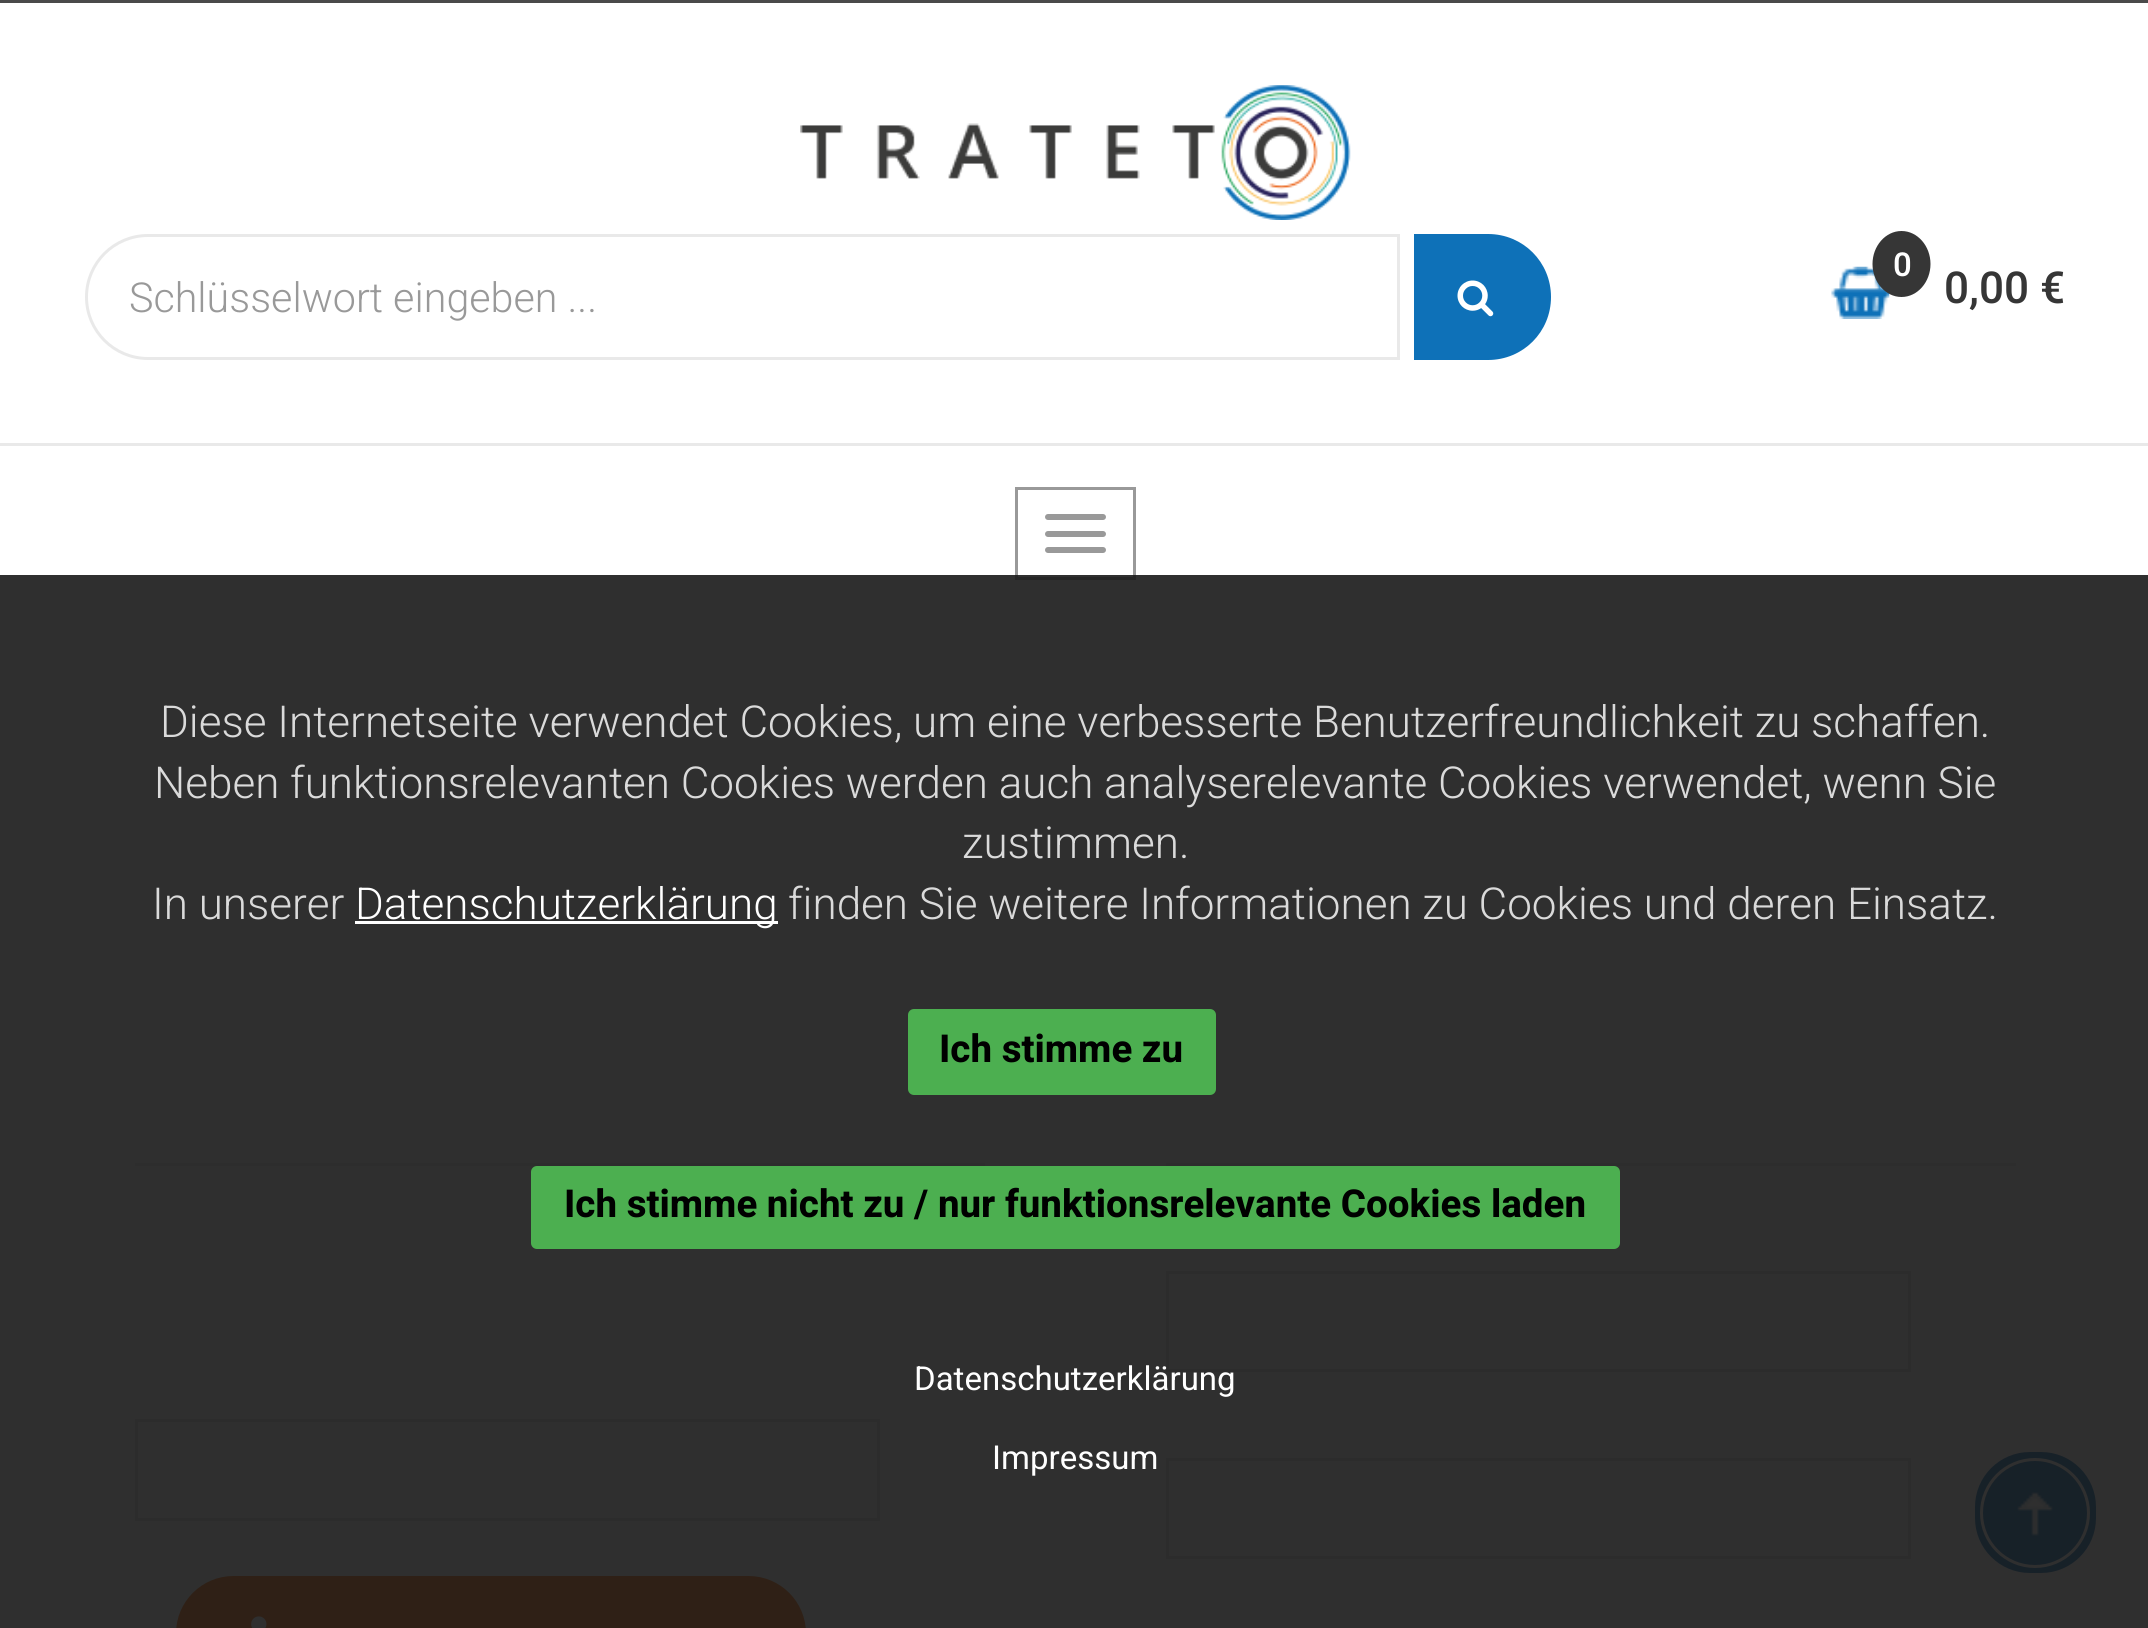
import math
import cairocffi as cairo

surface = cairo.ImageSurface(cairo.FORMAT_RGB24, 2148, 1628)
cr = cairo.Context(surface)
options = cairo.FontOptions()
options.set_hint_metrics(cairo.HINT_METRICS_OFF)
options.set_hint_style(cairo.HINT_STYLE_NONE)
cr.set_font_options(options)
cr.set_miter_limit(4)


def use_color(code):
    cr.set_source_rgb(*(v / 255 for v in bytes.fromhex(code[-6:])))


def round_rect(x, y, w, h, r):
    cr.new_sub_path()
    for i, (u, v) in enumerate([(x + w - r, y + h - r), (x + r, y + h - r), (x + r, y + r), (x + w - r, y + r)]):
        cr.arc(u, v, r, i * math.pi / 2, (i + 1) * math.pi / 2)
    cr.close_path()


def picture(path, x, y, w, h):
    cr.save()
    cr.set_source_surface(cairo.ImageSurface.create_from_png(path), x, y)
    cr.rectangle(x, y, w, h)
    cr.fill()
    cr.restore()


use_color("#ffffff")
cr.paint()
use_color("#4a4a4a")
cr.rectangle(0, 0, 2148, 3)
cr.fill()
use_color("#e9e9e9")
cr.rectangle(0, 443, 2148, 3)
cr.fill()
picture("img1.png", 800, 85, 551, 135)
cr.new_path()
cr.move_to(148, 235.5)
cr.line_to(1398.5, 235.5)
cr.line_to(1398.5, 358.5)
cr.line_to(148, 358.5)
cr.curve_to(114, 358.5, 86.5, 331, 86.5, 297)
cr.curve_to(86.5, 263, 114, 235.5, 148, 235.5)
cr.close_path()
cr.set_line_width(3)
cr.stroke()
cr.select_font_face("Heebo Light")
cr.set_font_size(41.25)
use_color("#999999")
cr.move_to(129, 312)
cr.show_text("Schlüsselwort eingeben ...")
use_color("#0e71b8")
cr.new_path()
cr.move_to(1414, 234)
cr.line_to(1488, 234)
cr.curve_to(1523, 234, 1551, 262, 1551, 297)
cr.curve_to(1551, 332, 1523, 360, 1488, 360)
cr.line_to(1414, 360)
cr.close_path()
cr.fill()
picture("img2.png", 1457, 280, 37, 37)
picture("img3.png", 1831, 266, 59, 53)
use_color("#363636")
cr.new_path()
cr.move_to(1901.5, 231)
cr.curve_to(1917.5, 231, 1930.5, 246, 1930.5, 264)
cr.curve_to(1930.5, 282, 1917.5, 297, 1901.5, 297)
cr.curve_to(1885.5, 297, 1872.5, 282, 1872.5, 264)
cr.curve_to(1872.5, 246, 1885.5, 231, 1901.5, 231)
cr.close_path()
cr.fill()
cr.select_font_face("Heebo Medium")
cr.set_font_size(33)
use_color("#ffffff")
cr.move_to(1893, 276)
cr.show_text("0")
cr.set_font_size(44)
use_color("#363636")
cr.move_to(1944, 303)
cr.show_text("0,00 €")
cr.rectangle(1016.5, 488.5, 118, 90)
use_color("#999999")
cr.stroke()
round_rect(1045, 514, 61, 6, 3)
cr.fill()
round_rect(1045, 531, 61, 6, 3)
cr.fill()
round_rect(1045, 547, 61, 6, 3)
cr.fill()
use_color("#ededed")
cr.rectangle(135, 1163, 850, 3)
cr.fill()
cr.rectangle(136.5, 1420.5, 742, 99)
use_color("#e5e5e5")
cr.stroke()
use_color("#ff6700")
round_rect(176, 1576, 630, 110, 57.5)
cr.fill()
picture("img4.png", 251, 1616, 16, 12)
use_color("#ededed")
cr.rectangle(1166, 1163, 850, 3)
cr.fill()
cr.rectangle(1167.5, 1272.5, 742, 98)
use_color("#e5e5e5")
cr.stroke()
cr.rectangle(1167.5, 1459.5, 742, 98)
cr.stroke()
use_color("#0e71b8")
round_rect(1975, 1452, 121, 121, 55)
cr.fill()
picture("img5.png", 2017, 1492, 36, 44)
cr.arc(2035, 1513, 53.5, 0, 2 * math.pi)
use_color("#ffffff")
cr.stroke()
cr.set_source_rgba(0.098, 0.098, 0.098, 0.9)
cr.rectangle(0, 575, 2148, 1053)
cr.fill()
cr.select_font_face("Heebo Light")
use_color("#dadada")
cr.move_to(160, 737)
cr.show_text("Diese Internetseite verwendet Cookies, um eine verbesserte Benutzerfreundlichkeit zu schaffen.")
cr.move_to(154, 798)
cr.show_text("Neben funktionsrelevanten Cookies werden auch analyserelevante Cookies verwendet, wenn Sie")
cr.move_to(962, 858)
cr.show_text("zustimmen.")
cr.move_to(152, 919)
cr.show_text("In unserer")
use_color("#ffffff")
cr.rectangle(355, 921, 423, 3)
cr.fill()
cr.move_to(355, 919)
cr.show_text("Datenschutzerklärung")
use_color("#dadada")
cr.move_to(788, 919)
cr.show_text("finden Sie weitere Informationen zu Cookies und deren Einsatz.")
use_color("#4caf50")
round_rect(908, 1009, 308, 86, 6)
cr.fill()
cr.select_font_face("Heebo", cairo.FONT_SLANT_NORMAL, cairo.FONT_WEIGHT_BOLD)
cr.set_font_size(38.5)
use_color("#000000")
cr.move_to(939, 1062)
cr.show_text("Ich stimme zu")
use_color("#4caf50")
round_rect(531, 1166, 1089, 83, 6)
cr.fill()
use_color("#000000")
cr.move_to(564, 1217)
cr.show_text("Ich stimme nicht zu / nur funktionsrelevante Cookies laden")
cr.select_font_face("Heebo")
cr.set_font_size(33)
use_color("#ffffff")
cr.move_to(914, 1390)
cr.show_text("Datenschutzerklärung")
cr.move_to(992, 1469)
cr.show_text("Impressum")
surface.write_to_png("result.png")
